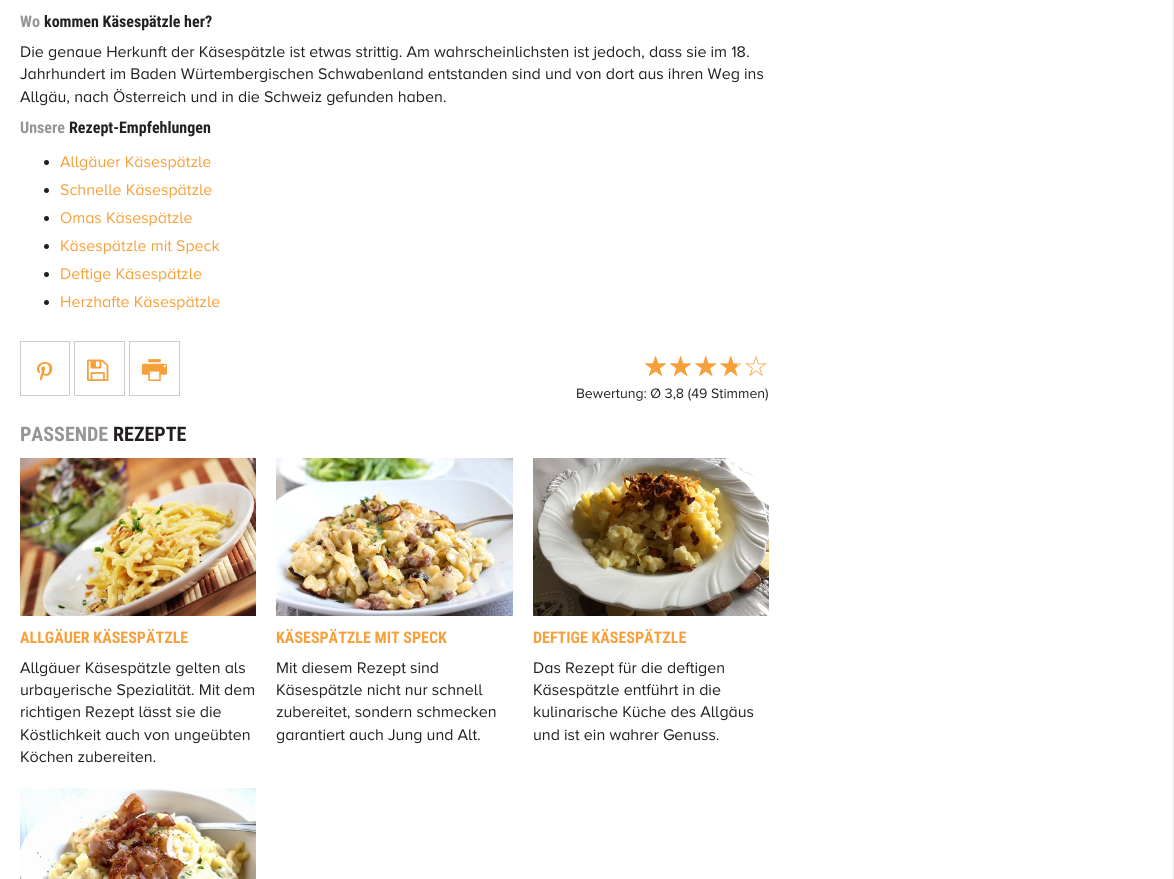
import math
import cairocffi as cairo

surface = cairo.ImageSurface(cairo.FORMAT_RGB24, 1174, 879)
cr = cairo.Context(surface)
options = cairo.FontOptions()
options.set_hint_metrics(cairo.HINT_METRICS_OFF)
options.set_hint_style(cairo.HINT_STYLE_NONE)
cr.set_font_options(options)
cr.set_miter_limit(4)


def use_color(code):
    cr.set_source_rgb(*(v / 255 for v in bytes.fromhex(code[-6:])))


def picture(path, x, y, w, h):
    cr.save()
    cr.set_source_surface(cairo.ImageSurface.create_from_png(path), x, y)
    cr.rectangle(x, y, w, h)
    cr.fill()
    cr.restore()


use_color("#ffffff")
cr.paint()
use_color("#eaeaec")
cr.rectangle(1173, 0, 1, 879)
cr.fill()
cr.select_font_face("Roboto Condensed", cairo.FONT_SLANT_NORMAL, cairo.FONT_WEIGHT_BOLD)
cr.set_font_size(16)
use_color("#959595")
cr.move_to(20, 27)
cr.show_text("Wo")
use_color("#231f20")
cr.move_to(44, 27)
cr.show_text("kommen Käsespätzle her?")
cr.select_font_face("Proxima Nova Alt")
cr.move_to(20, 57)
cr.show_text("Die genaue Herkunft der Käsespätzle ist etwas strittig. Am wahrscheinlichsten ist jedoch, dass sie im 18.")
cr.move_to(20, 79)
cr.show_text("Jahrhundert im Baden Würtembergischen Schwabenland entstanden sind und von dort aus ihren Weg ins")
cr.move_to(20, 102)
cr.show_text("Allgäu, nach Österreich und in die Schweiz gefunden haben.")
cr.select_font_face("Roboto Condensed", cairo.FONT_SLANT_NORMAL, cairo.FONT_WEIGHT_BOLD)
use_color("#959595")
cr.move_to(20, 133)
cr.show_text("Unsere")
use_color("#231f20")
cr.move_to(69, 133)
cr.show_text("Rezept-Empfehlungen")
cr.new_path()
cr.arc(46.5, 162.5, 2.5, 0, 2 * math.pi)
cr.fill()
cr.select_font_face("Proxima Nova Alt")
use_color("#f79f3a")
cr.move_to(60, 167)
cr.show_text("Allgäuer Käsespätzle")
use_color("#231f20")
cr.new_path()
cr.arc(46.5, 190.5, 2.5, 0, 2 * math.pi)
cr.fill()
use_color("#f79f3a")
cr.move_to(60, 195)
cr.show_text("Schnelle Käsespätzle")
use_color("#231f20")
cr.new_path()
cr.arc(46.5, 218.5, 2.5, 0, 2 * math.pi)
cr.fill()
use_color("#f79f3a")
cr.move_to(60, 223)
cr.show_text("Omas Käsespätzle")
use_color("#231f20")
cr.new_path()
cr.arc(46.5, 246.5, 2.5, 0, 2 * math.pi)
cr.fill()
use_color("#f79f3a")
cr.move_to(60, 251)
cr.show_text("Käsespätzle mit Speck")
use_color("#231f20")
cr.new_path()
cr.arc(46.5, 274.5, 2.5, 0, 2 * math.pi)
cr.fill()
use_color("#f79f3a")
cr.move_to(60, 279)
cr.show_text("Deftige Käsespätzle")
use_color("#231f20")
cr.new_path()
cr.arc(46.5, 302.5, 2.5, 0, 2 * math.pi)
cr.fill()
use_color("#f79f3a")
cr.move_to(60, 307)
cr.show_text("Herzhafte Käsespätzle")
cr.rectangle(20.5, 341.5, 49, 54)
use_color("#cccccc")
cr.set_line_width(1)
cr.stroke()
picture("img1.png", 36, 362, 17, 19)
cr.rectangle(74.5, 341.5, 50, 54)
cr.stroke()
picture("img2.png", 87, 359, 22, 22)
cr.rectangle(129.5, 341.5, 50, 54)
cr.stroke()
picture("img3.png", 142, 359, 25, 22)
cr.select_font_face("DejaVu Sans")
cr.set_font_size(28)
use_color("#f79f3a")
cr.move_to(643, 376)
cr.show_text("☆☆☆☆☆")
cr.save()
cr.rectangle(643, 351, 94, 31)
cr.clip()
cr.move_to(643, 376)
cr.show_text("★★★★")
cr.restore()
cr.select_font_face("Proxima Nova Alt")
cr.set_font_size(14.1)
use_color("#231f20")
cr.move_to(576, 398)
cr.show_text("Bewertung: Ø 3,8 (49 Stimmen)")
cr.select_font_face("Roboto Condensed", cairo.FONT_SLANT_NORMAL, cairo.FONT_WEIGHT_BOLD)
cr.set_font_size(20)
use_color("#959595")
cr.move_to(20, 441)
cr.show_text("PASSENDE")
use_color("#231f20")
cr.move_to(113, 441)
cr.show_text("REZEPTE")
picture("img4.png", 20, 458, 236, 158)
cr.set_font_size(16)
use_color("#f79f3a")
cr.move_to(20, 643)
cr.show_text("ALLGÄUER KÄSESPÄTZLE")
cr.select_font_face("Proxima Nova Alt")
use_color("#231f20")
cr.move_to(20, 673)
cr.show_text("Allgäuer Käsespätzle gelten als")
cr.move_to(20, 695)
cr.show_text("urbayerische Spezialität. Mit dem")
cr.move_to(20, 717)
cr.show_text("richtigen Rezept lässt sie die")
cr.move_to(20, 740)
cr.show_text("Köstlichkeit auch von ungeübten")
cr.move_to(20, 762)
cr.show_text("Köchen zubereiten.")
picture("img5.png", 276, 458, 237, 158)
cr.select_font_face("Roboto Condensed", cairo.FONT_SLANT_NORMAL, cairo.FONT_WEIGHT_BOLD)
use_color("#f79f3a")
cr.move_to(276, 643)
cr.show_text("KÄSESPÄTZLE MIT SPECK")
cr.select_font_face("Proxima Nova Alt")
use_color("#231f20")
cr.move_to(276, 673)
cr.show_text("Mit diesem Rezept sind")
cr.move_to(276, 695)
cr.show_text("Käsespätzle nicht nur schnell")
cr.move_to(276, 717)
cr.show_text("zubereitet, sondern schmecken")
cr.move_to(276, 740)
cr.show_text("garantiert auch Jung und Alt.")
picture("img6.png", 533, 458, 236, 158)
cr.select_font_face("Roboto Condensed", cairo.FONT_SLANT_NORMAL, cairo.FONT_WEIGHT_BOLD)
use_color("#f79f3a")
cr.move_to(533, 643)
cr.show_text("DEFTIGE KÄSESPÄTZLE")
cr.select_font_face("Proxima Nova Alt")
use_color("#231f20")
cr.move_to(533, 673)
cr.show_text("Das Rezept für die deftigen")
cr.move_to(533, 695)
cr.show_text("Käsespätzle entführt in die")
cr.move_to(533, 717)
cr.show_text("kulinarische Küche des Allgäus")
cr.move_to(533, 740)
cr.show_text("und ist ein wahrer Genuss.")
picture("img7.png", 20, 788, 236, 91)
surface.write_to_png("result.png")
